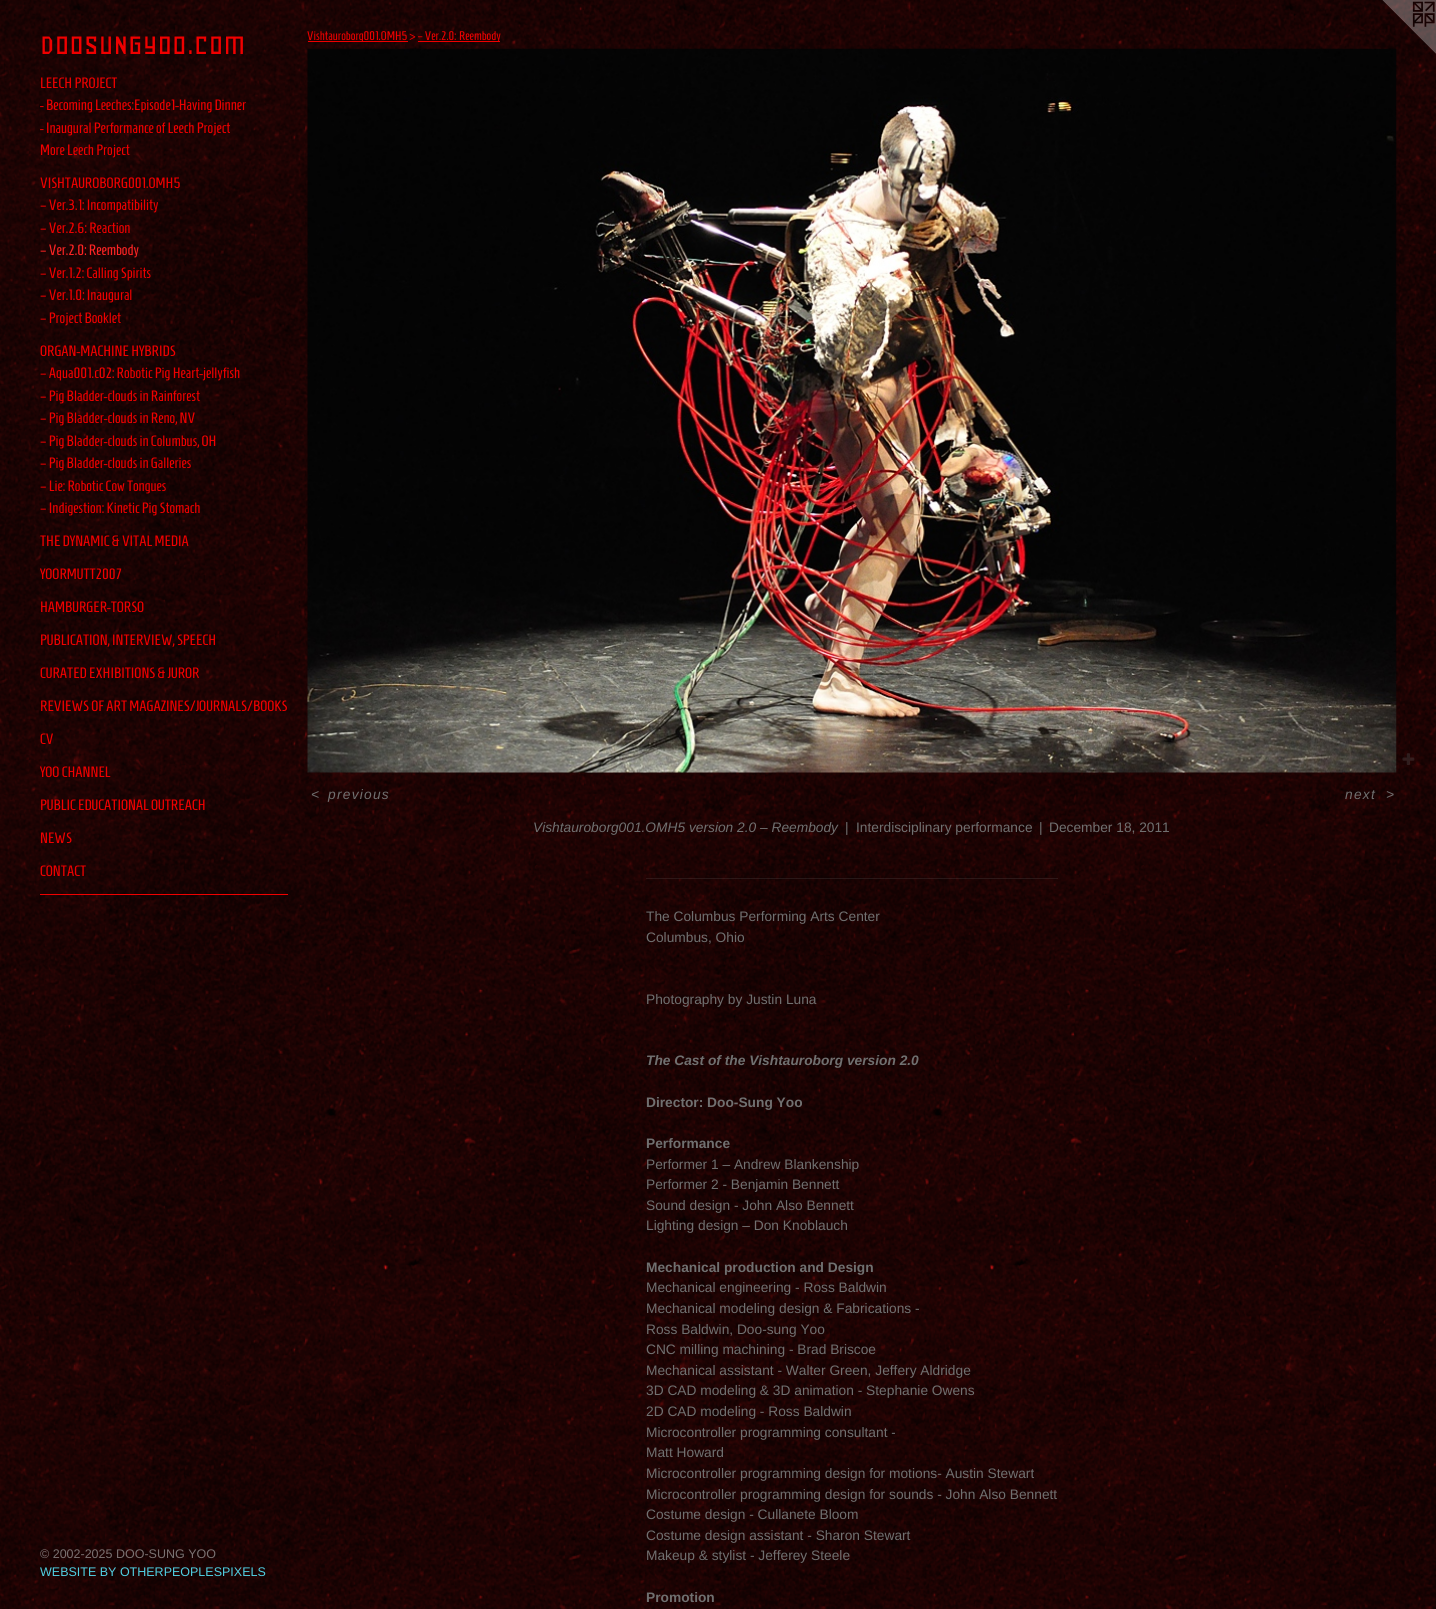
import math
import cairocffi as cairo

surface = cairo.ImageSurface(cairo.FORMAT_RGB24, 1436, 1609)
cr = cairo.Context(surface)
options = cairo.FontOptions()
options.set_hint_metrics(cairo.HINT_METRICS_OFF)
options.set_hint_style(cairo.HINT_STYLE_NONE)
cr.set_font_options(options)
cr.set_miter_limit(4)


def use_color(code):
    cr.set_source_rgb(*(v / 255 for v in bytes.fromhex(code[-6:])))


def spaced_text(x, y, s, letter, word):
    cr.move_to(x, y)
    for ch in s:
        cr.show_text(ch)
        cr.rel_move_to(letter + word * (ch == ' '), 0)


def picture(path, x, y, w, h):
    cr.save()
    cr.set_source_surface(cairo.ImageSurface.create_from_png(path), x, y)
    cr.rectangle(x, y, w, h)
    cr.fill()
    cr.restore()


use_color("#ffffff")
cr.paint()
picture("img1.png", 0, 0, 1436, 1609)
cr.select_font_face("Geo")
cr.set_font_size(31.25)
use_color("#f00000")
cr.move_to(40, 54)
cr.show_text("DOOSUNGYOO.COM")
cr.select_font_face("Homenaje")
cr.set_font_size(15)
cr.move_to(40, 88)
cr.show_text("LEECH PROJECT")
cr.move_to(40, 110)
cr.show_text("- Becoming Leeches:Episode1-Having Dinner")
cr.move_to(40, 133)
cr.show_text("- Inaugural Performance of Leech Project")
cr.move_to(40, 155)
cr.show_text("More Leech Project")
cr.move_to(40, 188)
cr.show_text("VISHTAUROBORG001.OMH5")
cr.move_to(40, 210)
cr.show_text("– Ver.3.1: Incompatibility")
cr.move_to(40, 233)
cr.show_text("– Ver.2.6: Reaction")
use_color("#ff2424")
cr.move_to(40, 255)
cr.show_text("– Ver.2.0: Reembody")
use_color("#f00000")
cr.move_to(40, 278)
cr.show_text("– Ver.1.2: Calling Spirits")
cr.move_to(40, 300)
cr.show_text("– Ver.1.0: Inaugural")
cr.move_to(40, 323)
cr.show_text("– Project Booklet")
cr.move_to(40, 356)
cr.show_text("ORGAN-MACHINE HYBRIDS")
cr.move_to(40, 378)
cr.show_text("– Aqua001.c02: Robotic Pig Heart-jellyfish")
cr.move_to(40, 401)
cr.show_text("– Pig Bladder-clouds in Rainforest")
cr.move_to(40, 423)
cr.show_text("– Pig Bladder-clouds in Reno, NV")
cr.move_to(40, 446)
cr.show_text("– Pig Bladder-clouds in Columbus, OH")
cr.move_to(40, 468)
cr.show_text("– Pig Bladder-clouds in Galleries")
cr.move_to(40, 491)
cr.show_text("– Lie: Robotic Cow Tongues")
cr.move_to(40, 513)
cr.show_text("– Indigestion: Kinetic Pig Stomach")
cr.move_to(40, 546)
cr.show_text("THE DYNAMIC & VITAL MEDIA")
cr.move_to(40, 579)
cr.show_text("YOORMUTT2007")
cr.move_to(40, 612)
cr.show_text("HAMBURGER-TORSO")
cr.move_to(40, 645)
cr.show_text("PUBLICATION, INTERVIEW, SPEECH")
cr.move_to(40, 678)
cr.show_text("CURATED EXHIBITIONS & JUROR")
cr.move_to(40, 711)
cr.show_text("REVIEWS OF ART MAGAZINES/JOURNALS/BOOKS")
cr.move_to(40, 744)
cr.show_text("CV")
cr.move_to(40, 777)
cr.show_text("YOO CHANNEL")
cr.move_to(40, 810)
cr.show_text("PUBLIC EDUCATIONAL OUTREACH")
cr.move_to(40, 843)
cr.show_text("NEWS")
cr.move_to(40, 876)
cr.show_text("CONTACT")
cr.rectangle(40, 894, 248, 1)
cr.fill()
cr.select_font_face("Liberation Sans")
cr.set_font_size(12.5)
use_color("#7a7171")
cr.move_to(40, 1558)
cr.show_text("© 2002-2025 DOO-SUNG YOO")
use_color("#50cfe2")
cr.move_to(40, 1576)
cr.show_text("WEBSITE BY OTHERPEOPLESPIXELS")
use_color("#f00000")
cr.rectangle(308, 41, 100, 1)
cr.fill()
cr.select_font_face("Homenaje")
cr.move_to(307, 40)
cr.show_text("Vishtauroborg001.OMH5 > – Ver.2.0:")
cr.rectangle(418, 41, 82, 1)
cr.fill()
cr.move_to(459, 40)
cr.show_text("Reembody")
picture("img4.png", 1382, 0, 54, 54)
picture("img2.png", 307, 48, 1090, 725)
picture("img3.png", 1402, 753, 13, 12)
cr.select_font_face("Liberation Sans", cairo.FONT_SLANT_ITALIC)
cr.set_font_size(13.75)
use_color("#707070")
spaced_text(311, 799, "<", 1.25, 0)
spaced_text(328, 799, "previous", 1.25, 0)
spaced_text(1345, 799, "next", 1.25, 0)
spaced_text(1386, 799, ">", 1.25, 0)
cr.move_to(533, 832)
cr.show_text("Vishtauroborg001.OMH5 version 2.0 – Reembody")
cr.select_font_face("Liberation Sans")
cr.move_to(845, 832)
cr.show_text("|")
cr.move_to(856, 832)
cr.show_text("Interdisciplinary performance")
cr.move_to(1039, 832)
cr.show_text("|")
cr.move_to(1049, 832)
cr.show_text("December 18, 2011")
cr.set_source_rgba(0.439, 0.439, 0.439, 0.2)
cr.rectangle(646, 878, 412, 1)
cr.fill()
use_color("#707070")
cr.move_to(646, 921)
cr.show_text("The Columbus Performing Arts Center")
cr.move_to(646, 942)
cr.show_text("Columbus, Ohio")
cr.move_to(646, 1004)
cr.show_text("Photography by Justin Luna")
cr.select_font_face("Liberation Sans", cairo.FONT_SLANT_ITALIC, cairo.FONT_WEIGHT_BOLD)
cr.move_to(646, 1065)
cr.show_text("The Cast of the Vishtauroborg version 2.0")
cr.select_font_face("Liberation Sans", cairo.FONT_SLANT_NORMAL, cairo.FONT_WEIGHT_BOLD)
cr.move_to(646, 1107)
cr.show_text("Director: Doo-Sung Yoo")
cr.move_to(646, 1148)
cr.show_text("Performance")
cr.select_font_face("Liberation Sans")
cr.move_to(646, 1169)
cr.show_text("Performer 1 – Andrew Blankenship")
cr.move_to(646, 1189)
cr.show_text("Performer 2 - Benjamin Bennett")
cr.move_to(646, 1210)
cr.show_text("Sound design - John Also Bennett")
cr.move_to(646, 1230)
cr.show_text("Lighting design – Don Knoblauch")
cr.select_font_face("Liberation Sans", cairo.FONT_SLANT_NORMAL, cairo.FONT_WEIGHT_BOLD)
cr.move_to(646, 1272)
cr.show_text("Mechanical production and Design")
cr.select_font_face("Liberation Sans")
cr.move_to(646, 1292)
cr.show_text("Mechanical engineering - Ross Baldwin")
cr.move_to(646, 1313)
cr.show_text("Mechanical modeling design & Fabrications -")
cr.move_to(646, 1334)
cr.show_text("Ross Baldwin, Doo-sung Yoo")
cr.move_to(646, 1354)
cr.show_text("CNC milling machining - Brad Briscoe")
cr.move_to(646, 1375)
cr.show_text("Mechanical assistant - Walter Green, Jeffery Aldridge")
cr.move_to(646, 1395)
cr.show_text("3D CAD modeling & 3D animation - Stephanie Owens")
cr.move_to(646, 1416)
cr.show_text("2D CAD modeling - Ross Baldwin")
cr.move_to(646, 1437)
cr.show_text("Microcontroller programming consultant -")
cr.move_to(646, 1457)
cr.show_text("Matt Howard")
cr.move_to(646, 1478)
cr.show_text("Microcontroller programming design for motions- Austin Stewart")
cr.move_to(646, 1499)
cr.show_text("Microcontroller programming design for sounds - John Also Bennett")
cr.move_to(646, 1519)
cr.show_text("Costume design - Cullanete Bloom")
cr.move_to(646, 1540)
cr.show_text("Costume design assistant - Sharon Stewart")
cr.move_to(646, 1560)
cr.show_text("Makeup & stylist - Jefferey Steele")
cr.select_font_face("Liberation Sans", cairo.FONT_SLANT_NORMAL, cairo.FONT_WEIGHT_BOLD)
cr.move_to(646, 1602)
cr.show_text("Promotion")
surface.write_to_png("result.png")
